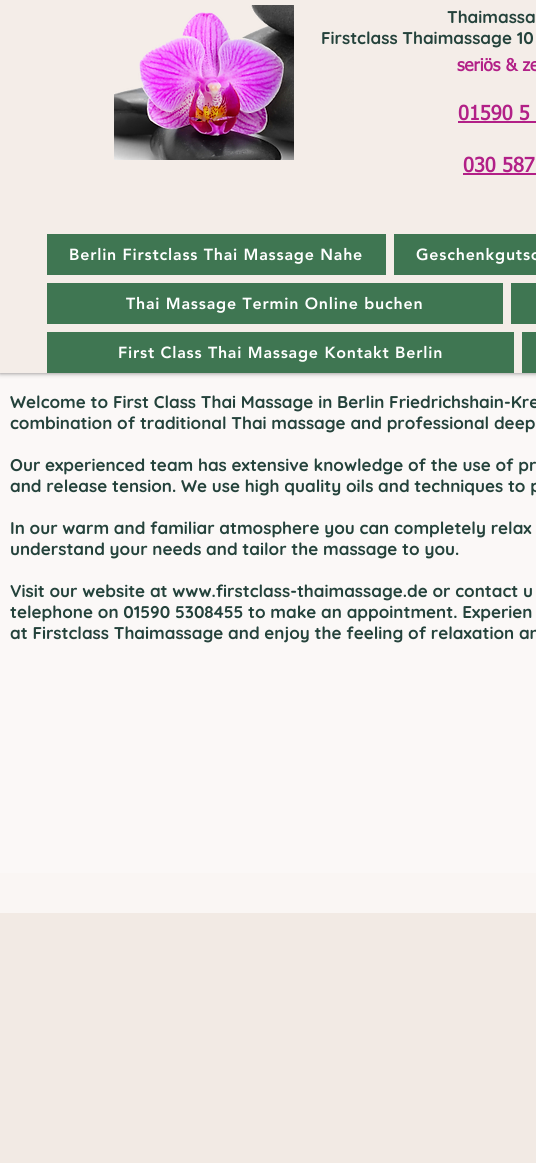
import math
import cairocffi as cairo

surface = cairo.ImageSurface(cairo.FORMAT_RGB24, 536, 1163)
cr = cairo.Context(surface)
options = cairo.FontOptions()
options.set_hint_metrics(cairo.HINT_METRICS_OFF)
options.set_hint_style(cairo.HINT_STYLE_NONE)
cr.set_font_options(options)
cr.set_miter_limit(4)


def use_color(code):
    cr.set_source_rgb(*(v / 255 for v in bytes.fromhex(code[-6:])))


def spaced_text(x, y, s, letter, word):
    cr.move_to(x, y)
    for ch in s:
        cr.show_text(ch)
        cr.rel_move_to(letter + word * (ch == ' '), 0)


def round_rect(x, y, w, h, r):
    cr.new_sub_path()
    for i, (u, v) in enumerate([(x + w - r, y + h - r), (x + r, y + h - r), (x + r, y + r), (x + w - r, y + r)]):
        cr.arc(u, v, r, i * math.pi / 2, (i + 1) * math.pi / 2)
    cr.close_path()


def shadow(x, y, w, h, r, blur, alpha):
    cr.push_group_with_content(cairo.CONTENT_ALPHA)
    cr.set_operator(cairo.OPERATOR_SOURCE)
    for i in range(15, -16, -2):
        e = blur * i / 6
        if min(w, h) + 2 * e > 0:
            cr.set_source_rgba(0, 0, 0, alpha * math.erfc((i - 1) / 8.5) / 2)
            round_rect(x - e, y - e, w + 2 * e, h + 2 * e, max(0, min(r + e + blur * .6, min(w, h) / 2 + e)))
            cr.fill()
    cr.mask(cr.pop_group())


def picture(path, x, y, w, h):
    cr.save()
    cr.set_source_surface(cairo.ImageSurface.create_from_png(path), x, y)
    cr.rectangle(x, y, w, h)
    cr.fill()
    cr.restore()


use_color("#f2eae4")
cr.paint()
use_color("#fbf8f7")
cr.rectangle(0, 373, 536, 500)
cr.fill()
use_color("#000000")
shadow(0, 0, 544, 373, 0, 2.5, 0.5)
use_color("#f4ede8")
cr.rectangle(0, 0, 536, 373)
cr.fill()
picture("img1.png", 114, 5, 180, 155)
cr.select_font_face("Quicksand", cairo.FONT_SLANT_NORMAL, cairo.FONT_WEIGHT_BOLD)
cr.set_font_size(17)
use_color("#24423b")
cr.move_to(447, 23)
cr.show_text("Thaimassa")
cr.move_to(321, 44)
cr.show_text("Firstclass Thaimassage 10")
cr.select_font_face("tahoma", cairo.FONT_SLANT_NORMAL, cairo.FONT_WEIGHT_BOLD)
use_color("#b22087")
cr.move_to(457, 71)
cr.show_text("seriös & ze")
cr.set_font_size(20)
cr.move_to(458, 120)
cr.show_text("01590 5")
cr.rectangle(458, 121, 78, 2)
cr.fill()
cr.move_to(463, 172)
cr.show_text("030 587")
cr.rectangle(463, 173, 73, 2)
cr.fill()
use_color("#3f7652")
cr.rectangle(47, 234, 339, 41)
cr.fill()
cr.select_font_face("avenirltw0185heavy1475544 Black")
cr.set_font_size(16)
use_color("#ffffff")
spaced_text(69, 260, "Berlin Firstclass Thai Massage Nahe", 0.8, 0)
use_color("#3f7652")
cr.rectangle(394, 234, 142, 41)
cr.fill()
use_color("#ffffff")
spaced_text(416, 260, "Geschenkgutsc", 0.8, 0)
use_color("#3f7652")
cr.rectangle(47, 283, 456, 41)
cr.fill()
use_color("#ffffff")
spaced_text(126, 309, "Thai Massage Termin Online buchen", 0.8, 0)
use_color("#3f7652")
cr.rectangle(511, 283, 25, 41)
cr.fill()
cr.rectangle(47, 332, 467, 41)
cr.fill()
use_color("#ffffff")
spaced_text(118, 358, "First Class Thai Massage Kontakt Berlin", 0.8, 0)
use_color("#3f7652")
cr.rectangle(522, 332, 14, 41)
cr.fill()
cr.select_font_face("Quicksand", cairo.FONT_SLANT_NORMAL, cairo.FONT_WEIGHT_BOLD)
cr.set_font_size(17)
use_color("#24423b")
cr.move_to(10, 408)
cr.show_text("Welcome to First Class Thai Massage in Berlin Friedrichshain-Kre")
cr.move_to(10, 429)
cr.show_text("combination of traditional Thai massage and professional deep")
cr.move_to(10, 471)
cr.show_text("Our experienced team has extensive knowledge of the use of pr")
cr.move_to(10, 492)
cr.show_text("and release tension. We use high quality oils and techniques to p")
cr.move_to(10, 534)
cr.show_text("In our warm and familiar atmosphere you can completely relax")
cr.move_to(10, 555)
cr.show_text("understand your needs and tailor the massage to you.")
cr.move_to(10, 597)
cr.show_text("Visit our website at www.firstclass-thaimassage.de or contact u")
cr.move_to(10, 618)
cr.show_text("telephone on 01590 5308455 to make an appointment. Experien")
cr.move_to(10, 639)
cr.show_text("at Firstclass Thaimassage and enjoy the feeling of relaxation an")
use_color("#faf6f4")
cr.rectangle(0, 873, 536, 40)
cr.fill()
surface.write_to_png("result.png")
